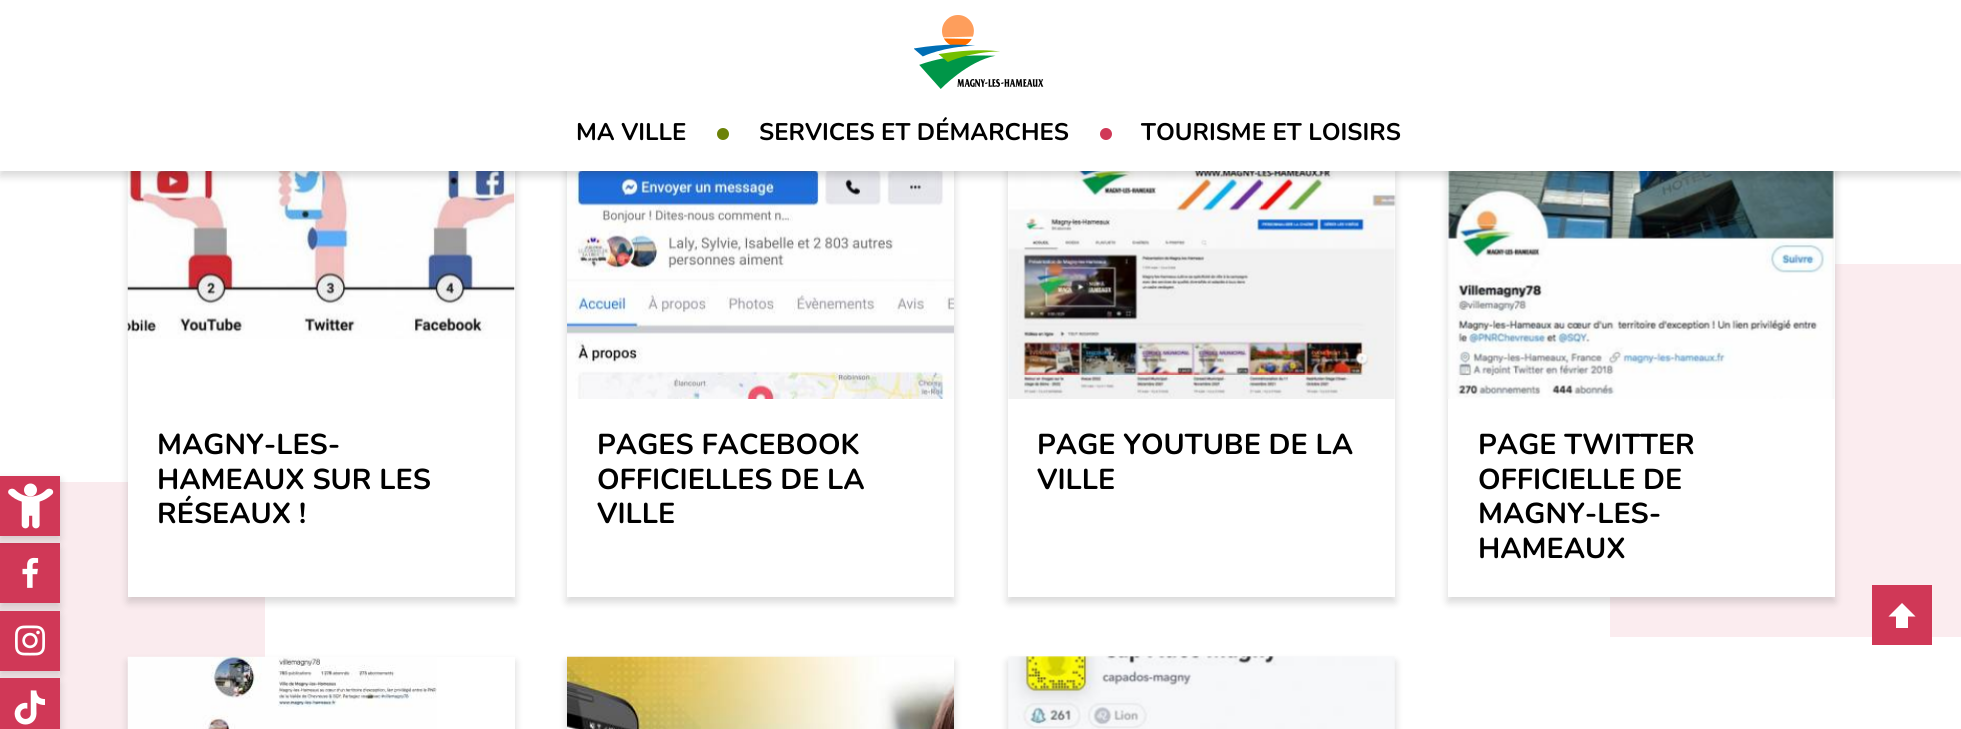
import math
import cairocffi as cairo

surface = cairo.ImageSurface(cairo.FORMAT_RGB24, 1961, 729)
cr = cairo.Context(surface)
options = cairo.FontOptions()
options.set_hint_metrics(cairo.HINT_METRICS_OFF)
options.set_hint_style(cairo.HINT_STYLE_NONE)
cr.set_font_options(options)
cr.set_miter_limit(4)


def use_color(code):
    cr.set_source_rgb(*(v / 255 for v in bytes.fromhex(code[-6:])))


def round_rect(x, y, w, h, r):
    cr.new_sub_path()
    for i, (u, v) in enumerate([(x + w - r, y + h - r), (x + r, y + h - r), (x + r, y + r), (x + w - r, y + r)]):
        cr.arc(u, v, r, i * math.pi / 2, (i + 1) * math.pi / 2)
    cr.close_path()


def shadow(x, y, w, h, r, blur, alpha):
    cr.push_group_with_content(cairo.CONTENT_ALPHA)
    cr.set_operator(cairo.OPERATOR_SOURCE)
    for i in range(15, -16, -2):
        e = blur * i / 6
        if min(w, h) + 2 * e > 0:
            cr.set_source_rgba(0, 0, 0, alpha * math.erfc((i - 1) / 8.5) / 2)
            round_rect(x - e, y - e, w + 2 * e, h + 2 * e, max(0, min(r + e + blur * .6, min(w, h) / 2 + e)))
            cr.fill()
    cr.mask(cr.pop_group())


def picture(path, x, y, w, h):
    cr.save()
    cr.set_source_surface(cairo.ImageSurface.create_from_png(path), x, y)
    cr.rectangle(x, y, w, h)
    cr.fill()
    cr.restore()


use_color("#ffffff")
cr.paint()
use_color("#faebee")
cr.rectangle(0, 482, 265, 247)
cr.fill()
use_color("#000000")
shadow(0, 548, 60, 60, 0, 4.5, 0.16)
use_color("#d03857")
cr.rectangle(0, 543, 60, 60)
cr.fill()
use_color("#000000")
shadow(0, 480, 60, 60, 0, 4.5, 0.16)
use_color("#d03857")
cr.rectangle(0, 476, 60, 60)
cr.fill()
picture("img1.png", 8, 483, 46, 46)
use_color("#000000")
shadow(128, 126, 387, 476, 0, 4.5, 0.16)
use_color("#ffffff")
cr.rectangle(128, 171, 387, 426)
cr.fill()
picture("img3.png", 127, 171, 388, 168)
cr.save()
cr.set_fill_rule(cairo.FILL_RULE_EVEN_ODD)
cr.new_path()
cr.move_to(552, 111)
cr.line_to(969, 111)
cr.line_to(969, 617)
cr.line_to(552, 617)
cr.close_path()
cr.move_to(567, 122)
cr.line_to(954, 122)
cr.line_to(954, 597)
cr.line_to(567, 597)
cr.close_path()
cr.clip()
use_color("#000000")
shadow(567, 126, 387, 476, 0, 4.5, 0.16)
cr.restore()
picture("img4.png", 567, 171, 387, 228)
cr.save()
cr.set_fill_rule(cairo.FILL_RULE_EVEN_ODD)
cr.new_path()
cr.move_to(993, 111)
cr.line_to(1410, 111)
cr.line_to(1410, 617)
cr.line_to(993, 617)
cr.close_path()
cr.move_to(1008, 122)
cr.line_to(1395, 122)
cr.line_to(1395, 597)
cr.line_to(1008, 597)
cr.close_path()
cr.clip()
use_color("#000000")
shadow(1008, 126, 387, 476, 0, 4.5, 0.16)
cr.restore()
picture("img5.png", 1008, 171, 388, 228)
use_color("#fbecef")
cr.rectangle(1610, 264, 351, 373)
cr.fill()
use_color("#000000")
shadow(1448, 126, 387, 476, 0, 4.5, 0.16)
use_color("#ffffff")
cr.rectangle(1448, 171, 387, 426)
cr.fill()
picture("img6.png", 1447, 171, 388, 228)
use_color("#000000")
shadow(0, 5, 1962, 171, 0, 4.5, 0.16)
use_color("#ffffff")
cr.rectangle(0, 0, 1961, 171)
cr.fill()
picture("img2.png", 914, 15, 130, 74)
cr.select_font_face("Nunito ExtraLight")
cr.set_font_size(24)
use_color("#000000")
cr.move_to(576, 140)
cr.show_text("MA VILLE")
use_color("#6c8209")
cr.new_path()
cr.arc(723, 134, 6, 0, 2 * math.pi)
cr.fill()
use_color("#000000")
cr.move_to(759, 140)
cr.show_text("SERVICES ET DÉMARCHES")
use_color("#d03857")
cr.new_path()
cr.arc(1106, 134, 6, 0, 2 * math.pi)
cr.fill()
use_color("#000000")
cr.move_to(1141, 140)
cr.show_text("TOURISME ET LOISIRS")
cr.set_font_size(28.75)
cr.move_to(157, 454)
cr.show_text("MAGNY-LES-")
cr.move_to(157, 489)
cr.show_text("HAMEAUX SUR LES")
cr.move_to(157, 523)
cr.show_text("RÉSEAUX !")
cr.move_to(597, 454)
cr.show_text("PAGES FACEBOOK")
cr.move_to(597, 489)
cr.show_text("OFFICIELLES DE LA")
cr.move_to(597, 523)
cr.show_text("VILLE")
cr.move_to(1037, 454)
cr.show_text("PAGE YOUTUBE DE LA")
cr.move_to(1037, 489)
cr.show_text("VILLE")
cr.move_to(1478, 454)
cr.show_text("PAGE TWITTER")
cr.move_to(1478, 489)
cr.show_text("OFFICIELLE DE")
cr.move_to(1478, 523)
cr.show_text("MAGNY-LES-")
cr.move_to(1478, 558)
cr.show_text("HAMEAUX")
use_color("#000000")
shadow(128, 662, 387, 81, 0, 4.5, 0.16)
use_color("#ffffff")
cr.rectangle(437, 657, 78, 72)
cr.fill()
picture("img7.png", 127, 656, 310, 73)
use_color("#000000")
shadow(567, 662, 387, 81, 0, 4.5, 0.16)
picture("img8.png", 567, 656, 387, 73)
shadow(1008, 662, 387, 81, 0, 4.5, 0.16)
picture("img9.png", 1008, 656, 387, 73)
picture("img10.png", 22, 557, 17, 31)
shadow(0, 615, 60, 60, 0, 4.5, 0.16)
use_color("#d03857")
cr.rectangle(0, 611, 60, 60)
cr.fill()
picture("img11.png", 15, 625, 30, 31)
use_color("#000000")
shadow(0, 683, 60, 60, 0, 4.5, 0.16)
use_color("#d03857")
cr.rectangle(0, 678, 60, 51)
cr.fill()
picture("img12.png", 14, 690, 31, 35)
cr.rectangle(1872, 585, 60, 60)
cr.fill()
use_color("#ffffff")
cr.new_path()
cr.move_to(1888.5, 616.5)
cr.line_to(1896, 616.5)
cr.line_to(1896, 628)
cr.line_to(1908, 628)
cr.line_to(1908, 616.5)
cr.line_to(1915.5, 616.5)
cr.line_to(1902, 603)
cr.close_path()
cr.fill()
surface.write_to_png("result.png")
